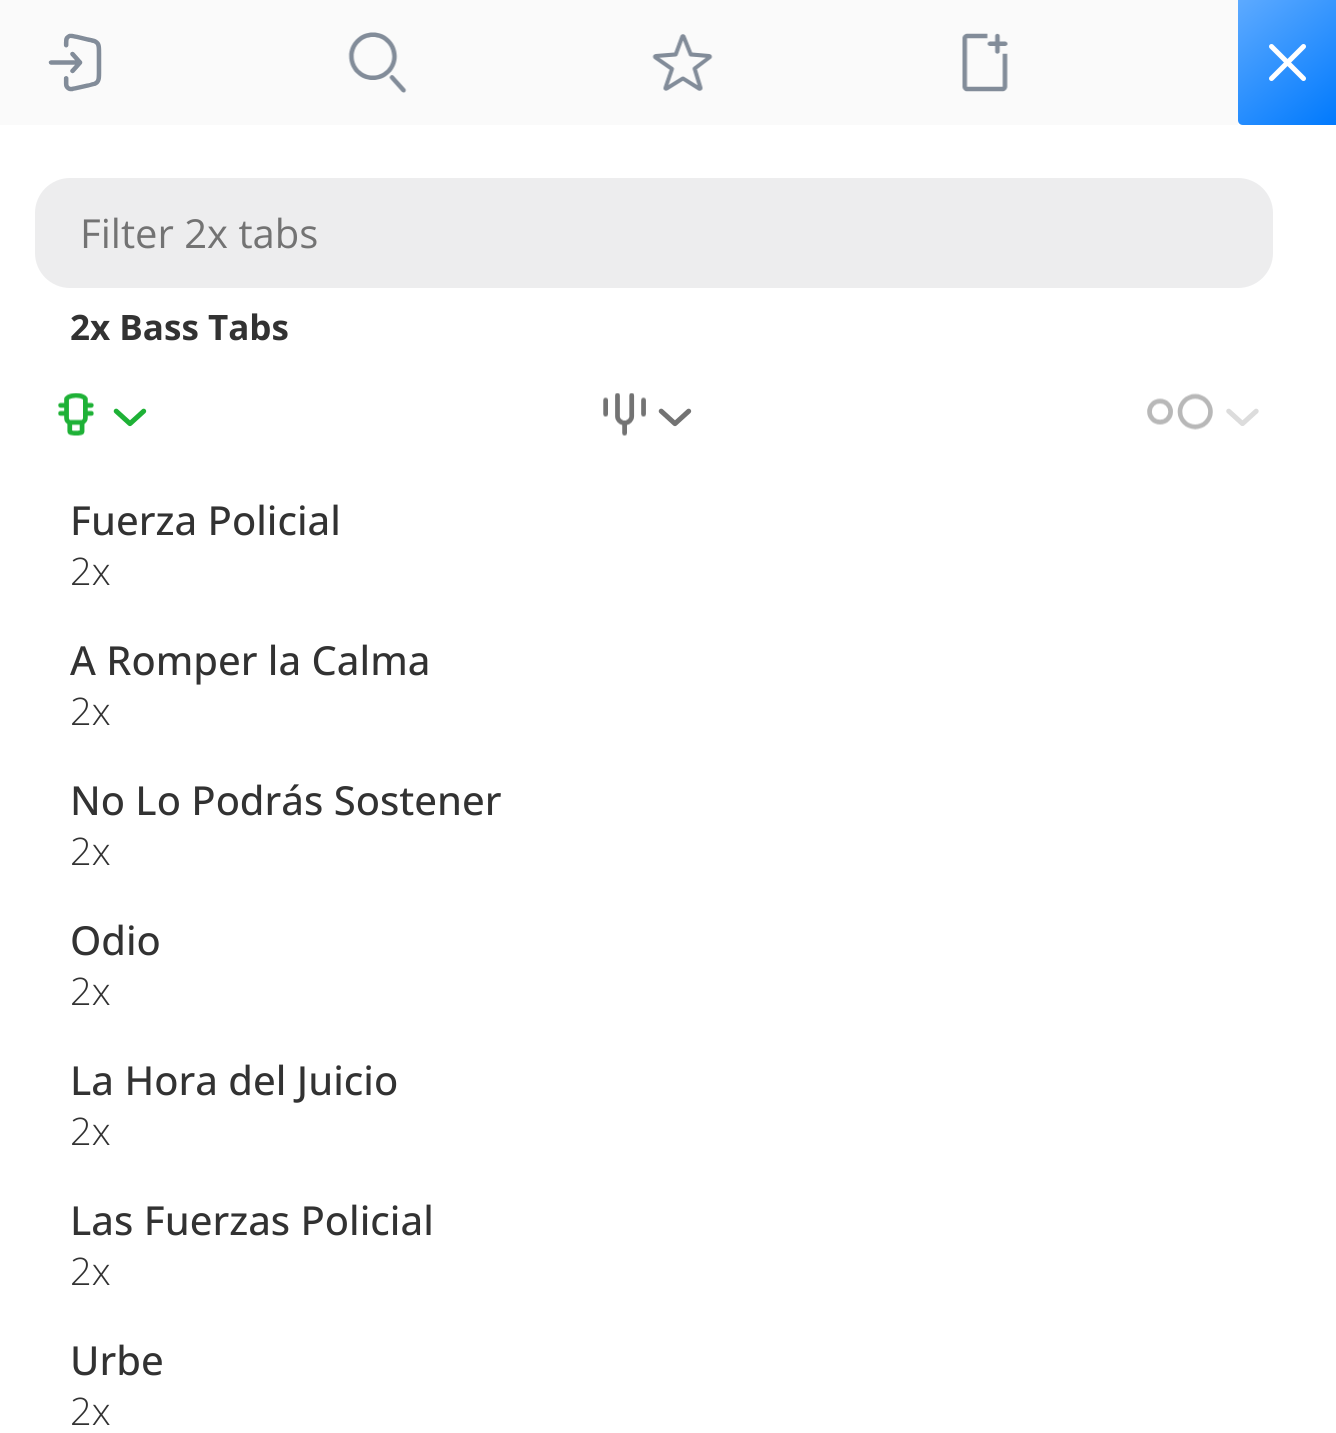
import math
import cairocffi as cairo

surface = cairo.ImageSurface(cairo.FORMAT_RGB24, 1336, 1433)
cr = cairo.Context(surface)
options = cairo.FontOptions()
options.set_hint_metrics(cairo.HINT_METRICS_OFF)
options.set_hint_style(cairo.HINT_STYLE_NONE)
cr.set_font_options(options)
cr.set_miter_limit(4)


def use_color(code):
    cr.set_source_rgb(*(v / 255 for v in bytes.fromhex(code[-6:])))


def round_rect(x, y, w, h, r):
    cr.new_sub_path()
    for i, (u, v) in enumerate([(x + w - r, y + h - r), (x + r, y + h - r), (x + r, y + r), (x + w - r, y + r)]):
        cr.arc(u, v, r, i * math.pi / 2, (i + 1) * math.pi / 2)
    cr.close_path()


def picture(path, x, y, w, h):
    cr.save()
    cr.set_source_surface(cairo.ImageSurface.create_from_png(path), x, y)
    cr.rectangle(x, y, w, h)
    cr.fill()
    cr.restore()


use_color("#ffffff")
cr.paint()
use_color("#fafafa")
cr.rectangle(0, 0, 1238, 125)
cr.fill()
picture("img1.png", 48, 33, 54, 59)
picture("img2.png", 348, 32, 59, 61)
picture("img3.png", 652, 34, 61, 57)
picture("img4.png", 962, 33, 46, 59)
gradient = cairo.LinearGradient(1237, 0.3, 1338, 125)
gradient.add_color_stop_rgba(0, 0.365, 0.667, 1, 1)
gradient.add_color_stop_rgba(1, 0, 0.475, 0.992, 1)
cr.set_source(gradient)
cr.new_path()
cr.move_to(1238, 0)
cr.line_to(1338, 0)
cr.line_to(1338, 125)
cr.line_to(1243, 125)
cr.curve_to(1240, 125, 1238, 123, 1238, 120)
cr.close_path()
cr.fill()
cr.new_path()
cr.move_to(1271.5, 46.5)
cr.line_to(1303.5, 78.5)
cr.move_to(1271.5, 78.5)
cr.line_to(1303.5, 46.5)
use_color("#ffffff")
cr.set_line_width(5)
cr.set_line_cap(cairo.LINE_CAP_ROUND)
cr.set_line_join(cairo.LINE_JOIN_ROUND)
cr.stroke()
use_color("#ededee")
round_rect(35, 178, 1238, 110, 35)
cr.fill()
cr.select_font_face("Open Sans")
cr.set_font_size(40)
use_color("#737373")
cr.move_to(80, 248)
cr.show_text("Filter 2x tabs")
cr.select_font_face("Open Sans", cairo.FONT_SLANT_NORMAL, cairo.FONT_WEIGHT_BOLD)
cr.set_font_size(35)
use_color("#323232")
cr.move_to(70, 340)
cr.show_text("2x Bass Tabs")
picture("img5.png", 58, 393, 36, 43)
picture("img6.png", 113, 408, 34, 19)
picture("img7.png", 603, 393, 43, 43)
picture("img8.png", 658, 408, 34, 19)
picture("img9.png", 1147, 393, 66, 37)
picture("img10.png", 1226, 408, 33, 18)
cr.select_font_face("Open Sans Medium")
cr.set_font_size(40)
cr.move_to(70, 535)
cr.show_text("Fuerza Policial")
cr.select_font_face("Open Sans Light")
cr.set_font_size(38)
cr.move_to(70, 585)
cr.show_text("2x")
cr.select_font_face("Open Sans Medium")
cr.set_font_size(40)
cr.move_to(70, 675)
cr.show_text("A Romper la Calma")
cr.select_font_face("Open Sans Light")
cr.set_font_size(38)
cr.move_to(70, 725)
cr.show_text("2x")
cr.select_font_face("Open Sans Medium")
cr.set_font_size(40)
cr.move_to(70, 815)
cr.show_text("No Lo Podrás Sostener")
cr.select_font_face("Open Sans Light")
cr.set_font_size(38)
cr.move_to(70, 865)
cr.show_text("2x")
cr.select_font_face("Open Sans Medium")
cr.set_font_size(40)
cr.move_to(70, 955)
cr.show_text("Odio")
cr.select_font_face("Open Sans Light")
cr.set_font_size(38)
cr.move_to(70, 1005)
cr.show_text("2x")
cr.select_font_face("Open Sans Medium")
cr.set_font_size(40)
cr.move_to(70, 1095)
cr.show_text("La Hora del Juicio")
cr.select_font_face("Open Sans Light")
cr.set_font_size(38)
cr.move_to(70, 1145)
cr.show_text("2x")
cr.select_font_face("Open Sans Medium")
cr.set_font_size(40)
cr.move_to(70, 1235)
cr.show_text("Las Fuerzas Policial")
cr.select_font_face("Open Sans Light")
cr.set_font_size(38)
cr.move_to(70, 1285)
cr.show_text("2x")
cr.select_font_face("Open Sans Medium")
cr.set_font_size(40)
cr.move_to(70, 1375)
cr.show_text("Urbe")
cr.select_font_face("Open Sans Light")
cr.set_font_size(38)
cr.move_to(70, 1425)
cr.show_text("2x")
surface.write_to_png("result.png")
